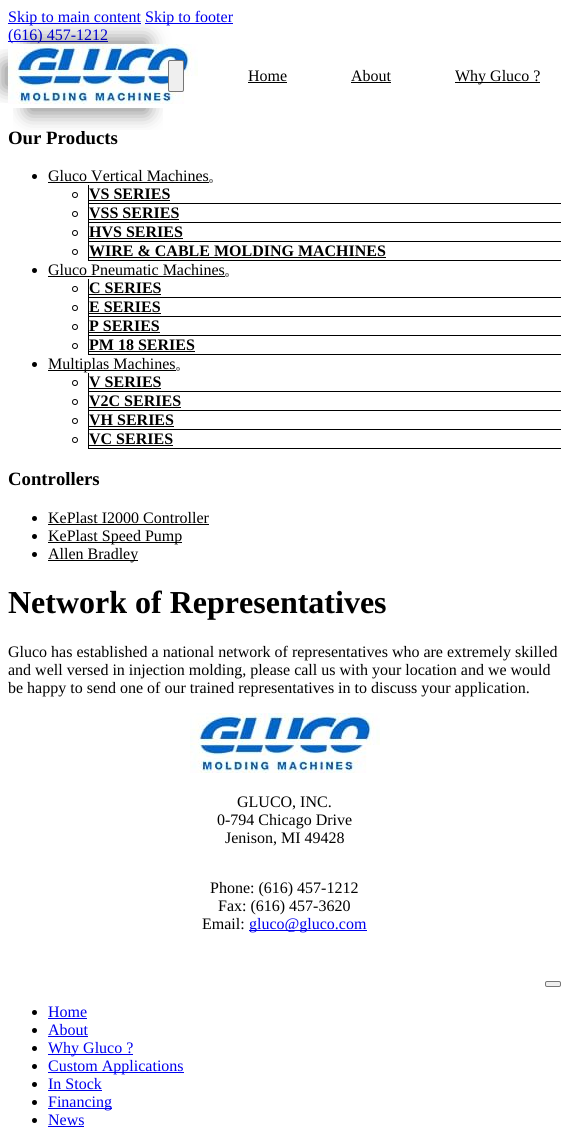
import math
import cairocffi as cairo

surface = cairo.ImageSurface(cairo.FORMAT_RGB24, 569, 1141)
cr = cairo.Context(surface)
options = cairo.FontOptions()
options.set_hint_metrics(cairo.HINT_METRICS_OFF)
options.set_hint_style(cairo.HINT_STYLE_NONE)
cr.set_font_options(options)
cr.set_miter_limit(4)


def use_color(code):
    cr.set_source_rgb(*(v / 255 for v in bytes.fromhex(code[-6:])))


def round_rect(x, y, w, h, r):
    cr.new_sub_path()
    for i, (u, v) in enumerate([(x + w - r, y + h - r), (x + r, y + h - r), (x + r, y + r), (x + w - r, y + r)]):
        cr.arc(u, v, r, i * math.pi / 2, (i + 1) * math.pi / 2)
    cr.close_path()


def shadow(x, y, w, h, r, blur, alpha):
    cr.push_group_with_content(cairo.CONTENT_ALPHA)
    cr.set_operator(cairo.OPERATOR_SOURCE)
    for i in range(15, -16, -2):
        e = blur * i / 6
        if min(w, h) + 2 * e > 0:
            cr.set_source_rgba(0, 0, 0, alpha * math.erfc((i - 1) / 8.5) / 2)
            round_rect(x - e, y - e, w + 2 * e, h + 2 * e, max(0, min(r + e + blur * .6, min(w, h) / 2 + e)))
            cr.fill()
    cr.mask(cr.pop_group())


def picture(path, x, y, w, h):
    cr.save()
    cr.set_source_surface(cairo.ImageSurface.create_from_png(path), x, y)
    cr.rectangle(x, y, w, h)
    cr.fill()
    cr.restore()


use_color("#ffffff")
cr.paint()
use_color("#0000ee")
cr.rectangle(8, 23, 133, 1)
cr.fill()
cr.select_font_face("Liberation Serif")
cr.set_font_size(16)
cr.move_to(8, 22)
cr.show_text("Skip to main content")
cr.rectangle(145, 23, 88, 1)
cr.fill()
cr.move_to(145, 22)
cr.show_text("Skip to footer")
cr.rectangle(8, 41, 100, 1)
cr.fill()
cr.move_to(8, 40)
cr.show_text("(616) 457-1212")
cr.save()
cr.rectangle(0, 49, 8, 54)
cr.clip()
use_color("#000000")
shadow(3, 64, 120, 24, 0, 10, 0.45)
cr.restore()
cr.save()
cr.rectangle(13, 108, 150, 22)
cr.clip()
use_color("#000000")
shadow(28, 89, 120, 24, 0, 10, 0.45)
cr.restore()
use_color("#000000")
shadow(28, 39, 120, 24, 0, 10, 0.45)
picture("img1.png", 8, 44, 190, 60)
use_color("#efefef")
round_rect(168.5, 60.5, 15, 31, 1.5)
cr.fill_preserve()
use_color("#767676")
cr.set_line_width(1)
cr.stroke()
use_color("#000000")
cr.move_to(248, 81)
cr.show_text("Home")
cr.rectangle(248, 82, 39, 1)
cr.fill()
cr.move_to(351, 81)
cr.show_text("About")
cr.rectangle(351, 82, 40, 1)
cr.fill()
cr.rectangle(455, 82, 85, 1)
cr.fill()
cr.move_to(455, 81)
cr.show_text("Why Gluco ?")
cr.select_font_face("Liberation Serif", cairo.FONT_SLANT_NORMAL, cairo.FONT_WEIGHT_BOLD)
cr.set_font_size(18.75)
cr.move_to(8, 144)
cr.show_text("Our Products")
cr.new_path()
cr.arc(34.5, 176.5, 2.5, 0, 2 * math.pi)
cr.fill()
cr.select_font_face("Liberation Serif")
cr.set_font_size(16)
cr.move_to(48, 181)
cr.show_text("Gluco Vertical Machines")
cr.rectangle(48, 182, 161, 1)
cr.fill()
use_color("#efefef")
cr.arc(211, 181, 1.5, 0, 2 * math.pi)
cr.fill_preserve()
use_color("#767676")
cr.stroke()
use_color("#000000")
cr.rectangle(88, 203, 473, 1)
cr.fill()
cr.rectangle(88, 185, 1, 19)
cr.fill()
cr.arc(75, 195, 2.5, 0, 2 * math.pi)
cr.stroke()
cr.select_font_face("Liberation Serif", cairo.FONT_SLANT_NORMAL, cairo.FONT_WEIGHT_BOLD)
cr.move_to(89, 199)
cr.show_text("VS SERIES")
cr.rectangle(89, 200, 81, 1)
cr.fill()
cr.rectangle(88, 222, 473, 1)
cr.fill()
cr.rectangle(88, 204, 1, 19)
cr.fill()
cr.arc(75, 214, 2.5, 0, 2 * math.pi)
cr.stroke()
cr.move_to(89, 218)
cr.show_text("VSS SERIES")
cr.rectangle(89, 219, 90, 1)
cr.fill()
cr.rectangle(88, 241, 473, 1)
cr.fill()
cr.rectangle(88, 223, 1, 19)
cr.fill()
cr.arc(75, 233, 2.5, 0, 2 * math.pi)
cr.stroke()
cr.move_to(89, 237)
cr.show_text("HVS SERIES")
cr.rectangle(89, 238, 94, 1)
cr.fill()
cr.rectangle(88, 260, 473, 1)
cr.fill()
cr.rectangle(88, 242, 1, 19)
cr.fill()
cr.arc(75, 252, 2.5, 0, 2 * math.pi)
cr.stroke()
cr.move_to(89, 256)
cr.show_text("WIRE & CABLE MOLDING MACHINES")
cr.rectangle(89, 257, 297, 1)
cr.fill()
cr.arc(34.5, 270.5, 2.5, 0, 2 * math.pi)
cr.fill()
cr.select_font_face("Liberation Serif")
cr.move_to(48, 275)
cr.show_text("Gluco Pneumatic Machines")
cr.rectangle(48, 276, 177, 1)
cr.fill()
use_color("#efefef")
cr.arc(227, 275, 1.5, 0, 2 * math.pi)
cr.fill_preserve()
use_color("#767676")
cr.stroke()
use_color("#000000")
cr.rectangle(88, 297, 473, 1)
cr.fill()
cr.rectangle(88, 279, 1, 19)
cr.fill()
cr.arc(75, 289, 2.5, 0, 2 * math.pi)
cr.stroke()
cr.select_font_face("Liberation Serif", cairo.FONT_SLANT_NORMAL, cairo.FONT_WEIGHT_BOLD)
cr.move_to(89, 293)
cr.show_text("C SERIES")
cr.rectangle(89, 294, 72, 1)
cr.fill()
cr.rectangle(88, 316, 473, 1)
cr.fill()
cr.rectangle(88, 298, 1, 19)
cr.fill()
cr.arc(75, 308, 2.5, 0, 2 * math.pi)
cr.stroke()
cr.move_to(89, 312)
cr.show_text("E SERIES")
cr.rectangle(89, 313, 72, 1)
cr.fill()
cr.rectangle(88, 335, 473, 1)
cr.fill()
cr.rectangle(88, 317, 1, 19)
cr.fill()
cr.arc(75, 327, 2.5, 0, 2 * math.pi)
cr.stroke()
cr.move_to(89, 331)
cr.show_text("P SERIES")
cr.rectangle(89, 332, 71, 1)
cr.fill()
cr.rectangle(88, 354, 473, 1)
cr.fill()
cr.rectangle(88, 336, 1, 19)
cr.fill()
cr.arc(75, 346, 2.5, 0, 2 * math.pi)
cr.stroke()
cr.move_to(89, 350)
cr.show_text("PM 18 SERIES")
cr.rectangle(89, 351, 106, 1)
cr.fill()
cr.arc(34.5, 364.5, 2.5, 0, 2 * math.pi)
cr.fill()
cr.rectangle(48, 370, 128, 1)
cr.fill()
cr.select_font_face("Liberation Serif")
cr.move_to(48, 369)
cr.show_text("Multiplas Machines")
use_color("#efefef")
cr.new_path()
cr.arc(178, 369, 1.5, 0, 2 * math.pi)
cr.fill_preserve()
use_color("#767676")
cr.stroke()
use_color("#000000")
cr.rectangle(88, 391, 473, 1)
cr.fill()
cr.rectangle(88, 373, 1, 19)
cr.fill()
cr.arc(75, 383, 2.5, 0, 2 * math.pi)
cr.stroke()
cr.select_font_face("Liberation Serif", cairo.FONT_SLANT_NORMAL, cairo.FONT_WEIGHT_BOLD)
cr.move_to(89, 387)
cr.show_text("V SERIES")
cr.rectangle(89, 388, 72, 1)
cr.fill()
cr.rectangle(88, 410, 473, 1)
cr.fill()
cr.rectangle(88, 392, 1, 19)
cr.fill()
cr.arc(75, 402, 2.5, 0, 2 * math.pi)
cr.stroke()
cr.move_to(89, 406)
cr.show_text("V2C SERIES")
cr.rectangle(89, 407, 92, 1)
cr.fill()
cr.rectangle(88, 429, 473, 1)
cr.fill()
cr.rectangle(88, 411, 1, 19)
cr.fill()
cr.arc(75, 421, 2.5, 0, 2 * math.pi)
cr.stroke()
cr.move_to(89, 425)
cr.show_text("VH SERIES")
cr.rectangle(89, 426, 85, 1)
cr.fill()
cr.rectangle(88, 448, 473, 1)
cr.fill()
cr.rectangle(88, 430, 1, 19)
cr.fill()
cr.arc(75, 440, 2.5, 0, 2 * math.pi)
cr.stroke()
cr.move_to(89, 444)
cr.show_text("VC SERIES")
cr.rectangle(89, 445, 84, 1)
cr.fill()
cr.set_font_size(18.75)
cr.move_to(8, 485)
cr.show_text("Controllers")
cr.new_path()
cr.arc(34.5, 518.5, 2.5, 0, 2 * math.pi)
cr.fill()
cr.select_font_face("Liberation Serif")
cr.set_font_size(16)
cr.move_to(48, 523)
cr.show_text("KePlast I2000 Controller")
cr.rectangle(48, 524, 161, 1)
cr.fill()
cr.arc(34.5, 536.5, 2.5, 0, 2 * math.pi)
cr.fill()
cr.rectangle(48, 542, 134, 1)
cr.fill()
cr.move_to(48, 541)
cr.show_text("KePlast Speed Pump")
cr.new_path()
cr.arc(34.5, 554.5, 2.5, 0, 2 * math.pi)
cr.fill()
cr.rectangle(48, 560, 90, 1)
cr.fill()
cr.move_to(48, 559)
cr.show_text("Allen Bradley")
cr.select_font_face("Liberation Serif", cairo.FONT_SLANT_NORMAL, cairo.FONT_WEIGHT_BOLD)
cr.set_font_size(32)
cr.move_to(8, 613)
cr.show_text("Network of Representatives")
cr.select_font_face("Liberation Serif")
cr.set_font_size(16)
cr.move_to(8, 657)
cr.show_text("Gluco has established a national network of representatives who are extremely skilled")
cr.move_to(8, 675)
cr.show_text("and well versed in injection molding, please call us with your location and we would")
cr.move_to(8, 693)
cr.show_text("be happy to send one of our trained representatives in to discuss your application.")
picture("img1.png", 190, 713, 190, 60)
cr.move_to(237, 807)
cr.show_text("GLUCO, INC.")
cr.move_to(217, 825)
cr.show_text("0-794 Chicago Drive")
cr.move_to(225, 843)
cr.show_text("Jenison, MI 49428")
cr.move_to(210, 893)
cr.show_text("Phone: (616) 457-1212")
cr.move_to(218, 911)
cr.show_text("Fax: (616) 457-3620")
cr.move_to(202, 929)
cr.show_text("Email:")
use_color("#0000ee")
cr.rectangle(249, 930, 118, 1)
cr.fill()
cr.move_to(249, 929)
cr.show_text("gluco@gluco.com")
use_color("#efefef")
round_rect(545.5, 981.5, 15, 5, 1.5)
cr.fill_preserve()
use_color("#767676")
cr.stroke()
use_color("#000000")
cr.arc(34.5, 1012.5, 2.5, 0, 2 * math.pi)
cr.fill()
use_color("#0000ee")
cr.move_to(48, 1017)
cr.show_text("Home")
cr.rectangle(48, 1018, 39, 1)
cr.fill()
use_color("#000000")
cr.arc(34.5, 1030.5, 2.5, 0, 2 * math.pi)
cr.fill()
use_color("#0000ee")
cr.move_to(48, 1035)
cr.show_text("About")
cr.rectangle(48, 1036, 40, 1)
cr.fill()
use_color("#000000")
cr.arc(34.5, 1048.5, 2.5, 0, 2 * math.pi)
cr.fill()
use_color("#0000ee")
cr.rectangle(48, 1054, 85, 1)
cr.fill()
cr.move_to(48, 1053)
cr.show_text("Why Gluco ?")
use_color("#000000")
cr.new_path()
cr.arc(34.5, 1066.5, 2.5, 0, 2 * math.pi)
cr.fill()
use_color("#0000ee")
cr.rectangle(48, 1072, 136, 1)
cr.fill()
cr.move_to(48, 1071)
cr.show_text("Custom Applications")
use_color("#000000")
cr.new_path()
cr.arc(34.5, 1084.5, 2.5, 0, 2 * math.pi)
cr.fill()
use_color("#0000ee")
cr.move_to(48, 1089)
cr.show_text("In Stock")
cr.rectangle(48, 1090, 54, 1)
cr.fill()
use_color("#000000")
cr.arc(34.5, 1102.5, 2.5, 0, 2 * math.pi)
cr.fill()
use_color("#0000ee")
cr.rectangle(48, 1108, 64, 1)
cr.fill()
cr.move_to(48, 1107)
cr.show_text("Financing")
use_color("#000000")
cr.new_path()
cr.arc(34.5, 1120.5, 2.5, 0, 2 * math.pi)
cr.fill()
use_color("#0000ee")
cr.move_to(48, 1125)
cr.show_text("News")
cr.rectangle(48, 1126, 36, 1)
cr.fill()
surface.write_to_png("result.png")
